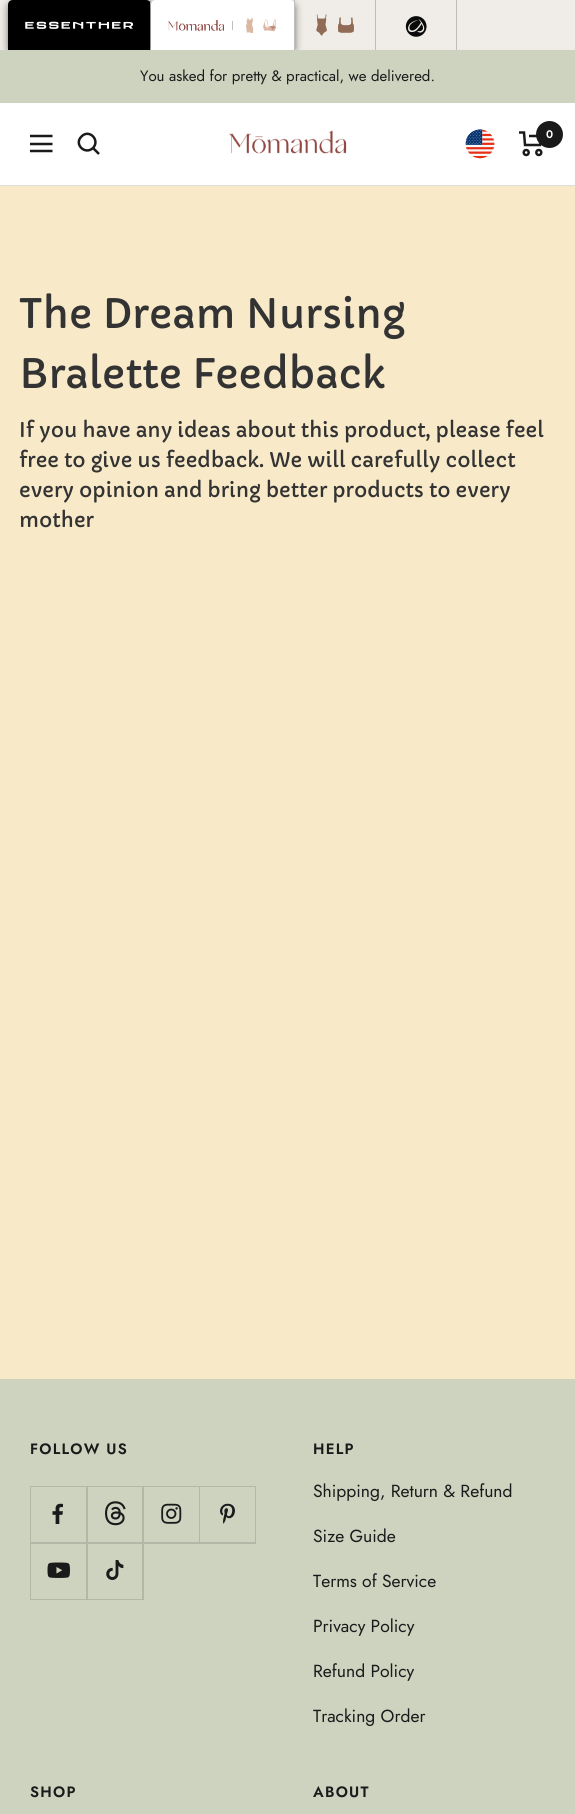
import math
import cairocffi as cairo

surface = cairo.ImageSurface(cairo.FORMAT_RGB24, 575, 1814)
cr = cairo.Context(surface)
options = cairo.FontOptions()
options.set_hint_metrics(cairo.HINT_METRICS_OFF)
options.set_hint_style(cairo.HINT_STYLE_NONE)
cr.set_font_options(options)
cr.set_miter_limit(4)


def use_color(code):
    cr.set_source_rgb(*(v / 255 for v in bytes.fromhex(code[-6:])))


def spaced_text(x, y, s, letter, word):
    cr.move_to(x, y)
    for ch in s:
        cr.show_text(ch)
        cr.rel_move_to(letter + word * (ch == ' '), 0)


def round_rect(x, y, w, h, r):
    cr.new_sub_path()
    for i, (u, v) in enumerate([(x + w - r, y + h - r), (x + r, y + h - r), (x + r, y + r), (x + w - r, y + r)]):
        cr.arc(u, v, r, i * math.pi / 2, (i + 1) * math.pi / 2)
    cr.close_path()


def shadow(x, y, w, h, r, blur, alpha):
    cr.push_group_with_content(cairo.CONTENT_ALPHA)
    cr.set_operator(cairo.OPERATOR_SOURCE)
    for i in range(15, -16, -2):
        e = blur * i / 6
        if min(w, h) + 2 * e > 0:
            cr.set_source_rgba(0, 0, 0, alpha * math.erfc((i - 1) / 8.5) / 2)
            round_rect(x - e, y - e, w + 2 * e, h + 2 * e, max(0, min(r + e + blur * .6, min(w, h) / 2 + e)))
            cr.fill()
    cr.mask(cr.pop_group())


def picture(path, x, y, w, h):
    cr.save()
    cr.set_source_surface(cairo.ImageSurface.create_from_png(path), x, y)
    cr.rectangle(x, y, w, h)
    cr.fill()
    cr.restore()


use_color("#ffffff")
cr.paint()
use_color("#f0ede8")
cr.rectangle(0, 0, 575, 50)
cr.fill()
use_color("#000000")
shadow(8, 3, 143, 50, 5, 4, 0.5)
use_color("#000000")
cr.new_path()
cr.move_to(13, 0)
cr.line_to(146, 0)
cr.curve_to(149, 0, 151, 2, 151, 5)
cr.line_to(151, 50)
cr.line_to(8, 50)
cr.line_to(8, 5)
cr.curve_to(8, 2, 10, 0, 13, 0)
cr.close_path()
cr.fill()
use_color("#bdbdbd")
cr.rectangle(150, 0, 1, 50)
cr.fill()
picture("img1.png", 25, 21, 109, 8)
use_color("#000000")
shadow(151, 3, 144, 50, 5, 4, 0.5)
use_color("#ffffff")
cr.new_path()
cr.move_to(156, 0)
cr.line_to(290, 0)
cr.curve_to(293, 0, 295, 2, 295, 5)
cr.line_to(295, 50)
cr.line_to(151, 50)
cr.line_to(151, 5)
cr.curve_to(151, 2, 153, 0, 156, 0)
cr.close_path()
cr.fill()
use_color("#bdbdbd")
cr.rectangle(294, 0, 1, 50)
cr.fill()
picture("img2.png", 168, 18, 109, 15)
cr.rectangle(375, 0, 1, 50)
cr.fill()
picture("img3.png", 316, 14, 38, 22)
cr.rectangle(456, 0, 1, 50)
cr.fill()
picture("img4.png", 405, 16, 22, 21)
use_color("#ced3c0")
cr.rectangle(0, 50, 575, 53)
cr.fill()
cr.select_font_face("Jost")
cr.set_font_size(15)
use_color("#1a1a1a")
cr.move_to(140, 81)
cr.show_text("You asked for pretty & practical, we delivered.")
use_color("#dddddd")
cr.rectangle(0, 185, 575, 1)
cr.fill()
cr.new_path()
cr.move_to(30, 136)
cr.line_to(52.5, 136)
cr.move_to(30, 151)
cr.line_to(52.5, 151)
cr.close_path()
cr.move_to(30, 144)
cr.line_to(52.5, 144)
cr.close_path()
use_color("#1a1a1a")
cr.set_line_width(2.5)
cr.stroke()
cr.new_path()
cr.move_to(93, 148)
cr.curve_to(100.5, 140, 89, 128.5, 81.5, 136.5)
cr.curve_to(73.5, 144, 85, 155.5, 93, 148)
cr.close_path()
cr.move_to(93, 148)
cr.line_to(99, 154)
cr.stroke()
picture("img5.png", 229, 130, 118, 24)
picture("img6.png", 465, 129, 30, 30)
cr.new_path()
cr.move_to(519, 132.5)
cr.line_to(524, 132.5)
cr.line_to(525, 145)
cr.line_to(540, 145)
cr.line_to(542.5, 136)
cr.line_to(529, 136)
cr.stroke()
cr.arc(526.2, 152.5, 2.5, 0, 2 * math.pi)
cr.stroke()
cr.arc(538.8, 152.5, 2.5, 0, 2 * math.pi)
cr.stroke()
cr.arc(549.5, 134.5, 13.5, 0, 2 * math.pi)
cr.fill()
cr.select_font_face("Jost SemiBold")
cr.set_font_size(11)
use_color("#ffffff")
cr.move_to(546, 138)
cr.show_text("0")
use_color("#f8eac9")
cr.rectangle(0, 186, 575, 1193)
cr.fill()
cr.select_font_face("Capriola")
cr.set_font_size(40)
use_color("#333333")
cr.move_to(19, 328)
cr.show_text("The Dream Nursing")
cr.move_to(19, 388)
cr.show_text("Bralette Feedback")
cr.set_font_size(20)
cr.move_to(19, 437)
cr.show_text("If you have any ideas about this product, please feel")
cr.move_to(19, 467)
cr.show_text("free to give us feedback. We will carefully collect")
cr.move_to(19, 497)
cr.show_text("every opinion and bring better products to every")
cr.move_to(19, 527)
cr.show_text("mother")
use_color("#ced3c0")
cr.rectangle(0, 1379, 575, 435)
cr.fill()
cr.select_font_face("Jost SemiBold")
cr.set_font_size(15)
use_color("#1a1a1a")
spaced_text(30, 1454, "FOLLOW US", 1.25, 0)
use_color("#b3b7a7")
cr.new_path()
cr.move_to(31, 1542)
cr.line_to(31, 1544)
cr.line_to(88, 1544)
cr.line_to(88, 1488)
cr.line_to(86, 1488)
cr.line_to(86, 1542)
cr.close_path()
cr.fill()
cr.rectangle(30, 1543, 1, 1)
cr.fill()
cr.new_path()
cr.move_to(31, 1486)
cr.line_to(86, 1486)
cr.line_to(86, 1542)
cr.line_to(31, 1542)
cr.line_to(31, 1543)
cr.line_to(88, 1543)
cr.line_to(88, 1486)
cr.close_path()
cr.fill()
cr.rectangle(30, 1486, 56, 1)
cr.fill()
cr.rectangle(30, 1486, 1, 57)
cr.fill()
picture("img7.png", 52, 1503, 11, 21)
cr.new_path()
cr.move_to(88, 1542)
cr.line_to(88, 1544)
cr.line_to(144, 1544)
cr.line_to(144, 1488)
cr.line_to(142, 1488)
cr.line_to(142, 1542)
cr.close_path()
cr.fill()
cr.new_path()
cr.move_to(88, 1486)
cr.line_to(142, 1486)
cr.line_to(142, 1542)
cr.line_to(88, 1542)
cr.line_to(88, 1543)
cr.line_to(144, 1543)
cr.line_to(144, 1486)
cr.close_path()
cr.fill()
cr.rectangle(86, 1486, 57, 1)
cr.fill()
picture("img8.png", 105, 1501, 21, 25)
cr.new_path()
cr.move_to(144, 1542)
cr.line_to(144, 1544)
cr.line_to(200, 1544)
cr.line_to(200, 1488)
cr.line_to(199, 1488)
cr.line_to(199, 1542)
cr.close_path()
cr.fill()
cr.new_path()
cr.move_to(144, 1486)
cr.line_to(199, 1486)
cr.line_to(199, 1542)
cr.line_to(144, 1542)
cr.line_to(144, 1543)
cr.line_to(200, 1543)
cr.line_to(200, 1486)
cr.close_path()
cr.fill()
cr.rectangle(143, 1486, 56, 1)
cr.fill()
picture("img9.png", 161, 1503, 21, 21)
cr.new_path()
cr.move_to(200, 1542)
cr.line_to(200, 1544)
cr.line_to(256, 1544)
cr.line_to(256, 1488)
cr.line_to(255, 1488)
cr.line_to(255, 1542)
cr.close_path()
cr.fill()
cr.new_path()
cr.move_to(200, 1486)
cr.line_to(255, 1486)
cr.line_to(255, 1542)
cr.line_to(200, 1542)
cr.line_to(200, 1543)
cr.line_to(256, 1543)
cr.line_to(256, 1486)
cr.close_path()
cr.fill()
cr.rectangle(199, 1486, 56, 1)
cr.fill()
picture("img10.png", 220, 1503, 15, 21)
cr.new_path()
cr.move_to(31, 1599)
cr.line_to(31, 1600)
cr.line_to(88, 1600)
cr.line_to(88, 1544)
cr.line_to(86, 1544)
cr.line_to(86, 1599)
cr.close_path()
cr.fill()
cr.rectangle(30, 1543, 1, 57)
cr.fill()
picture("img11.png", 47, 1562, 23, 16)
cr.new_path()
cr.move_to(88, 1599)
cr.line_to(88, 1600)
cr.line_to(144, 1600)
cr.line_to(144, 1544)
cr.line_to(142, 1544)
cr.line_to(142, 1599)
cr.close_path()
cr.fill()
picture("img12.png", 106, 1560, 18, 20)
use_color("#1a1a1a")
spaced_text(313, 1454, "HELP", 1.25, 0)
cr.select_font_face("Jost")
cr.set_font_size(17.5)
cr.move_to(313, 1497)
cr.show_text("Shipping, Return & Refund")
cr.move_to(313, 1542)
cr.show_text("Size Guide")
cr.move_to(313, 1587)
cr.show_text("Terms of Service")
cr.move_to(313, 1632)
cr.show_text("Privacy Policy")
cr.move_to(313, 1677)
cr.show_text("Refund Policy")
cr.move_to(313, 1722)
cr.show_text("Tracking Order")
cr.select_font_face("Jost SemiBold")
cr.set_font_size(15)
spaced_text(30, 1797, "SHOP", 1.25, 0)
spaced_text(313, 1797, "ABOUT", 1.25, 0)
surface.write_to_png("result.png")
